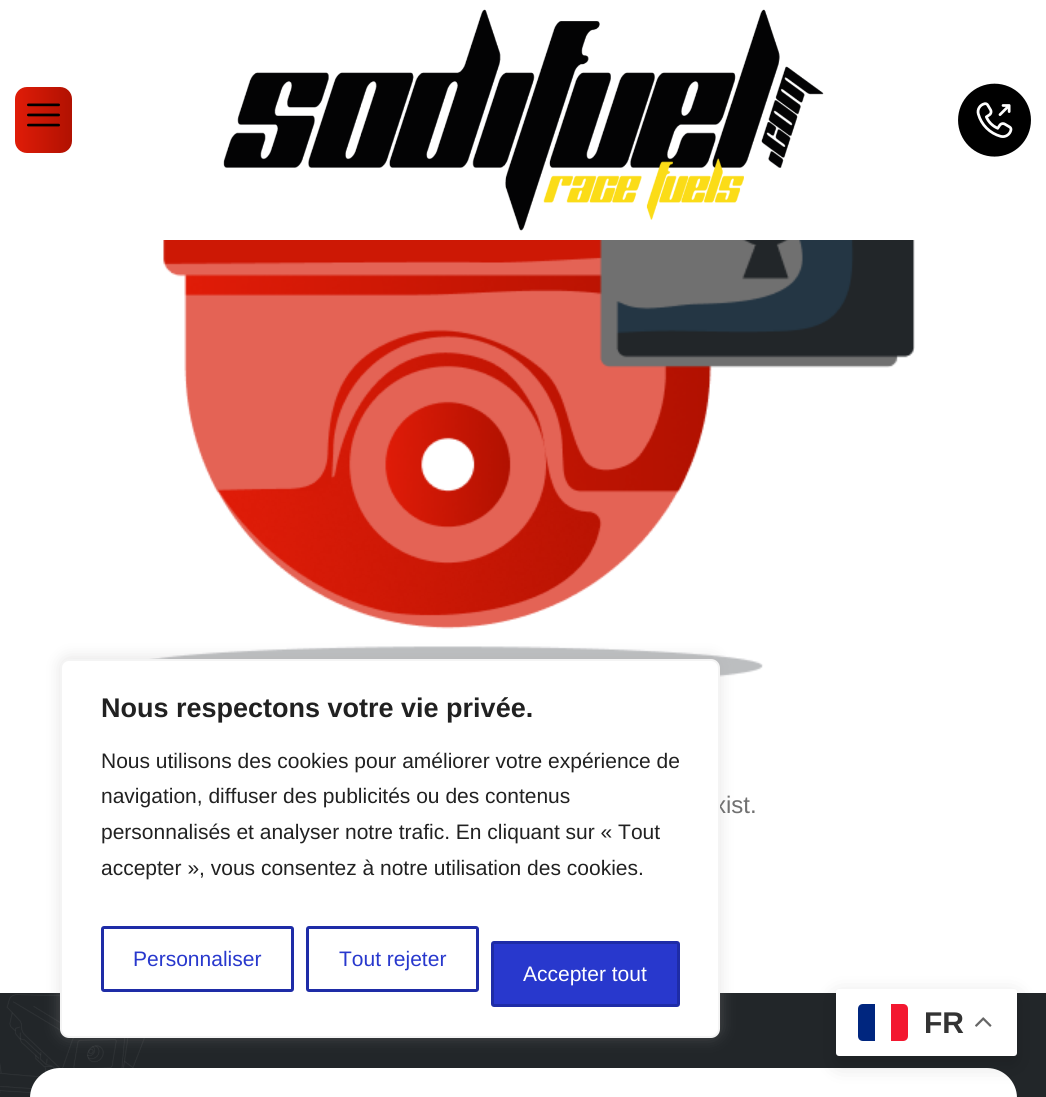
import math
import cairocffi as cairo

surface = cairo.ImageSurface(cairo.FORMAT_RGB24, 1046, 1097)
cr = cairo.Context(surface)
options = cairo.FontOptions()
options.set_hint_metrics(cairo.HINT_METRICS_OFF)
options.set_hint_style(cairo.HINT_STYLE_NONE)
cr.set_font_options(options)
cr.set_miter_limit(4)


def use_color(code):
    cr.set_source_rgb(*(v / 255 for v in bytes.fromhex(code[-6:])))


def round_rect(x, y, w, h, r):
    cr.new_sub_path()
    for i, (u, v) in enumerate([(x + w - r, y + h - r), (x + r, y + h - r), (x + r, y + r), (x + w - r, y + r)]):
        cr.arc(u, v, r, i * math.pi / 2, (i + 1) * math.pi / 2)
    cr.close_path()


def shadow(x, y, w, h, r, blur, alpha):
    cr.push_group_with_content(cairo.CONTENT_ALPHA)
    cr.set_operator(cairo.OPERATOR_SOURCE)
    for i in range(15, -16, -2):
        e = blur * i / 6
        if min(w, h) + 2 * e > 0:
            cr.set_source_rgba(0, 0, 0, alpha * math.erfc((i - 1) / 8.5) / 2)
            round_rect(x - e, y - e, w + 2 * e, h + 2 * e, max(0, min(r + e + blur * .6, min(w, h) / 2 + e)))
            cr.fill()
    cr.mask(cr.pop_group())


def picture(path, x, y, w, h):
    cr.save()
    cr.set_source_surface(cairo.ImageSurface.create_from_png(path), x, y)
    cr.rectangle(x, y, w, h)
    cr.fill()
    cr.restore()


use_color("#ffffff")
cr.paint()
gradient = cairo.LinearGradient(15, 120, 72, 120)
gradient.add_color_stop_rgba(0, 0.878, 0.11, 0.031, 1)
gradient.add_color_stop_rgba(1, 0.694, 0.067, 0.004, 1)
cr.set_source(gradient)
round_rect(15, 87, 57, 66, 12)
cr.fill()
picture("img1.png", 27, 103, 33, 24)
picture("img2.png", 223, 9, 601, 222)
picture("img3.png", 958, 83, 73, 74)
picture("img4.png", 149, 240, 766, 437)
use_color("#222629")
cr.rectangle(0, 993, 1046, 104)
cr.fill()
picture("img5.png", 0, 994, 145, 99)
use_color("#acabab")
shadow(60, 657, 660, 380, 9, 7.5, 0.3)
cr.select_font_face("Liberation Sans")
cr.set_font_size(24)
use_color("#707070")
cr.move_to(714, 813)
cr.show_text("xist.")
use_color("#ffffff")
round_rect(61, 660, 658, 377, 8)
cr.fill_preserve()
use_color("#f4f4f4")
cr.stroke()
cr.select_font_face("Liberation Sans", cairo.FONT_SLANT_NORMAL, cairo.FONT_WEIGHT_BOLD)
cr.set_font_size(27)
use_color("#212121")
cr.move_to(101, 717)
cr.show_text("Nous respectons votre vie privée.")
cr.select_font_face("Liberation Sans")
cr.set_font_size(21)
cr.move_to(101, 768)
cr.show_text("Nous utilisons des cookies pour améliorer votre expérience de")
cr.move_to(101, 803)
cr.show_text("navigation, diffuser des publicités ou des contenus")
cr.move_to(101, 839)
cr.show_text("personnalisés et analyser notre trafic. En cliquant sur « Tout")
cr.move_to(101, 875)
cr.show_text("accepter », vous consentez à notre utilisation des cookies.")
round_rect(102.5, 927.5, 190, 63, 1.5)
use_color("#1e2ca7")
cr.set_line_width(3)
cr.stroke()
use_color("#2838cd")
cr.move_to(133, 966)
cr.show_text("Personnaliser")
round_rect(307.5, 927.5, 170, 63, 1.5)
use_color("#1e2ca7")
cr.stroke()
use_color("#2838cd")
cr.move_to(339, 966)
cr.show_text("Tout rejeter")
round_rect(492.5, 942.5, 186, 63, 1.5)
cr.fill_preserve()
use_color("#1e2ca7")
cr.stroke()
use_color("#ffffff")
cr.move_to(523, 981)
cr.show_text("Accepter tout")
cr.new_path()
cr.move_to(60, 1068)
cr.line_to(987, 1068)
cr.curve_to(1003.5, 1068, 1017, 1081.5, 1017, 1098)
cr.line_to(1017, 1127)
cr.line_to(30, 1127)
cr.line_to(30, 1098)
cr.curve_to(30, 1081.5, 43.5, 1068, 60, 1068)
cr.close_path()
cr.fill()
use_color("#000000")
shadow(836, 996, 181, 68, 3, 11, 0.15)
use_color("#ffffff")
round_rect(836, 989, 181, 67, 3)
cr.fill()
use_color("#00267f")
cr.new_path()
cr.move_to(863, 1004)
cr.line_to(875, 1004)
cr.line_to(875, 1041)
cr.line_to(863, 1041)
cr.curve_to(860, 1041, 858, 1039, 858, 1036)
cr.line_to(858, 1009)
cr.curve_to(858, 1006, 860, 1004, 863, 1004)
cr.close_path()
cr.fill()
use_color("#f31830")
cr.new_path()
cr.move_to(891, 1004)
cr.line_to(903, 1004)
cr.curve_to(906, 1004, 908, 1006, 908, 1009)
cr.line_to(908, 1036)
cr.curve_to(908, 1039, 906, 1041, 903, 1041)
cr.line_to(891, 1041)
cr.close_path()
cr.fill()
cr.select_font_face("Liberation Sans", cairo.FONT_SLANT_NORMAL, cairo.FONT_WEIGHT_BOLD)
cr.set_font_size(30)
use_color("#333333")
cr.move_to(924, 1033)
cr.show_text("FR")
picture("img6.png", 975, 1017, 17, 10)
surface.write_to_png("result.png")
